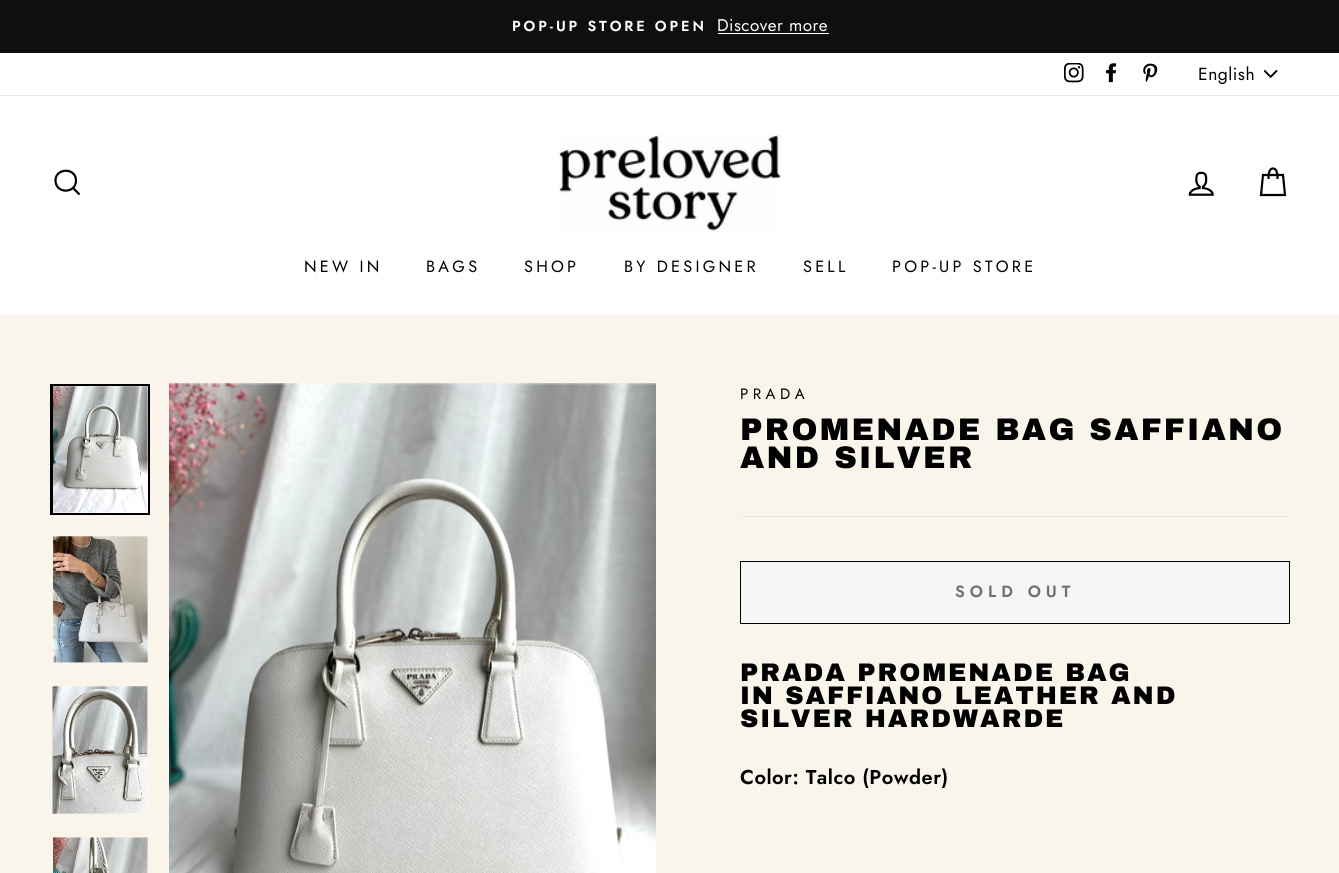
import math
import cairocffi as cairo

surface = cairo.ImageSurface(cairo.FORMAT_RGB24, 1339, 873)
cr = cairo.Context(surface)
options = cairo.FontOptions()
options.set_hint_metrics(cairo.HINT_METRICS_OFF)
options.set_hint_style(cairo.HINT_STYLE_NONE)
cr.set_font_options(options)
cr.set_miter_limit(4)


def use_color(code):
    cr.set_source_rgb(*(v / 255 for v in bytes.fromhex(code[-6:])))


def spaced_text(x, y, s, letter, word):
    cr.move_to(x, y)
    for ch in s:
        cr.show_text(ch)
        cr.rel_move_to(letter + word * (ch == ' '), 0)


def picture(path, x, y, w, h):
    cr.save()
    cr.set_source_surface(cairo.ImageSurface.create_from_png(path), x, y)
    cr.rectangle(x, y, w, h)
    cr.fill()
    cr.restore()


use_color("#faf5eb")
cr.paint()
use_color("#0f0f0f")
cr.rectangle(0, 0, 1339, 53)
cr.fill()
cr.select_font_face("Jost SemiBold")
cr.set_font_size(14.5)
use_color("#ffffff")
spaced_text(512, 31, "POP-UP STORE OPEN", 2.9, 0)
cr.select_font_face("Jost")
cr.set_font_size(17)
spaced_text(717, 31, "Discover more", 0.5, 0)
cr.rectangle(718, 33, 111, 1)
cr.fill()
cr.rectangle(0, 53, 1339, 42)
cr.fill()
picture("img1.png", 1064, 63, 20, 20)
picture("img2.png", 1106, 63, 11, 20)
picture("img3.png", 1143, 63, 15, 19)
picture("img4.png", 1264, 70, 14, 8)
cr.set_font_size(17.5)
use_color("#000000")
spaced_text(1198, 80, "English", 0.5, 0)
use_color("#ffffff")
cr.rectangle(0, 96, 1339, 219)
cr.fill()
use_color("#e6e6e6")
cr.rectangle(0, 95, 1339, 1)
cr.fill()
cr.new_path()
cr.move_to(76, 180.5)
cr.curve_to(76, 194, 55.5, 194, 55.5, 180.5)
cr.curve_to(55.5, 167.5, 76, 167.5, 76, 180.5)
cr.close_path()
cr.move_to(79.5, 194.5)
cr.line_to(73, 188)
use_color("#000000")
cr.set_line_width(2.2)
cr.stroke()
picture("img5.png", 558, 134, 224, 99)
picture("img6.png", 1188, 171, 26, 25)
cr.new_path()
cr.move_to(1268.5, 179)
cr.curve_to(1268.5, 170.5, 1270.5, 168.5, 1273, 168.5)
cr.curve_to(1275.5, 168.5, 1277.5, 170.5, 1277.5, 179)
cr.move_to(1263, 175)
cr.line_to(1283, 175)
cr.line_to(1285, 195)
cr.line_to(1261, 195)
cr.close_path()
cr.stroke()
cr.set_font_size(16.25)
spaced_text(304, 272, "NEW IN", 3.25, 0)
spaced_text(426, 272, "BAGS", 3.25, 0)
spaced_text(524, 272, "SHOP", 3.25, 0)
spaced_text(624, 272, "BY DESIGNER", 3.25, 0)
spaced_text(803, 272, "SELL", 3.25, 0)
spaced_text(892, 272, "POP-UP STORE", 3.25, 0)
cr.rectangle(51.5, 385.5, 97, 128)
cr.set_line_width(3)
cr.stroke()
use_color("#ffffff")
cr.rectangle(53, 386, 95, 127)
cr.fill()
picture("img7.png", 53, 386, 95, 127)
cr.rectangle(53, 536, 95, 127)
cr.fill()
picture("img8.png", 53, 536, 95, 127)
cr.rectangle(53, 686, 95, 128)
cr.fill()
picture("img9.png", 52, 686, 96, 128)
cr.rectangle(147, 838, 1, 35)
cr.fill()
picture("img10.png", 53, 837, 95, 36)
picture("img11.png", 169, 383, 487, 490)
cr.set_font_size(15)
use_color("#000000")
spaced_text(740, 399, "PRADA", 4.5, 0)
cr.select_font_face("Archivo Black")
cr.set_font_size(31.2)
spaced_text(740, 440, "PROMENADE BAG SAFFIANO", 2.3, 0)
spaced_text(740, 468, "AND SILVER", 2.3, 0)
use_color("#e8e8e1")
cr.rectangle(740, 516, 550, 1)
cr.fill()
use_color("#f6f6f6")
cr.rectangle(740.5, 561.5, 549, 62)
cr.fill_preserve()
use_color("#000000")
cr.set_line_width(1)
cr.stroke()
cr.select_font_face("Jost SemiBold")
cr.set_font_size(16.25)
use_color("#717171")
spaced_text(955, 597, "SOLD OUT", 5, 0)
cr.select_font_face("Archivo Black")
cr.set_font_size(25.4)
use_color("#000000")
spaced_text(740, 681, "PRADA PROMENADE BAG", 1.9, 0)
spaced_text(740, 704, "IN SAFFIANO LEATHER AND", 1.9, 0)
spaced_text(740, 727, "SILVER HARDWARDE", 1.9, 0)
cr.select_font_face("Jost SemiBold")
cr.set_font_size(20)
spaced_text(740, 784, "Color: Talco (Powder)", 0.5, 0)
surface.write_to_png("result.png")
